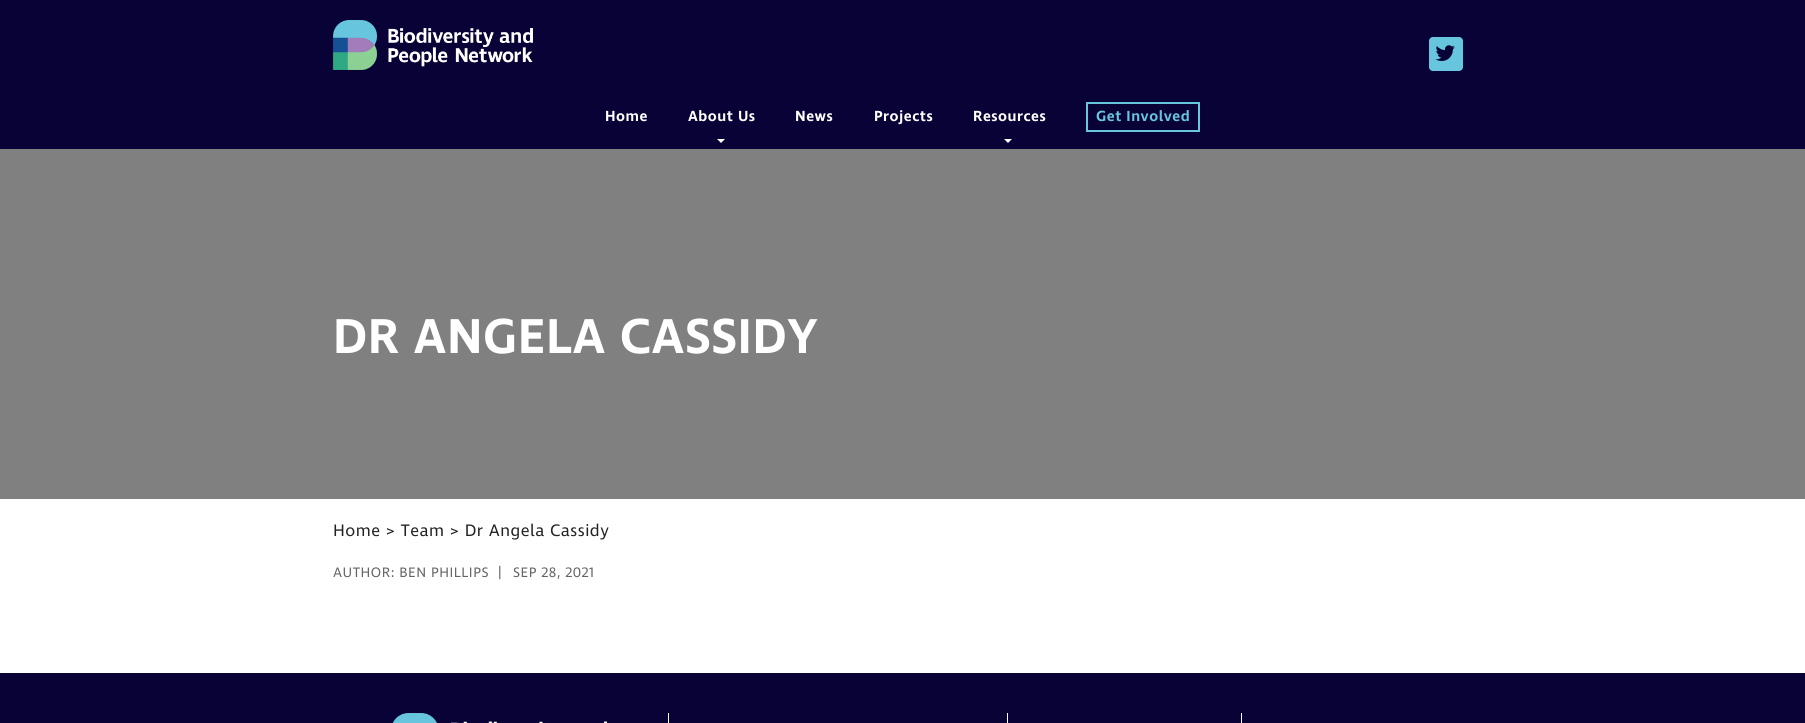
import math
import cairocffi as cairo

surface = cairo.ImageSurface(cairo.FORMAT_RGB24, 1805, 723)
cr = cairo.Context(surface)
options = cairo.FontOptions()
options.set_hint_metrics(cairo.HINT_METRICS_OFF)
options.set_hint_style(cairo.HINT_STYLE_NONE)
cr.set_font_options(options)
cr.set_miter_limit(4)


def use_color(code):
    cr.set_source_rgb(*(v / 255 for v in bytes.fromhex(code[-6:])))


def spaced_text(x, y, s, letter, word):
    cr.move_to(x, y)
    for ch in s:
        cr.show_text(ch)
        cr.rel_move_to(letter + word * (ch == ' '), 0)


def round_rect(x, y, w, h, r):
    cr.new_sub_path()
    for i, (u, v) in enumerate([(x + w - r, y + h - r), (x + r, y + h - r), (x + r, y + r), (x + w - r, y + r)]):
        cr.arc(u, v, r, i * math.pi / 2, (i + 1) * math.pi / 2)
    cr.close_path()


def picture(path, x, y, w, h):
    cr.save()
    cr.set_source_surface(cairo.ImageSurface.create_from_png(path), x, y)
    cr.rectangle(x, y, w, h)
    cr.fill()
    cr.restore()


use_color("#ffffff")
cr.paint()
use_color("#080236")
cr.rectangle(0, 0, 1805, 149)
cr.fill()
picture("img1.png", 333, 20, 200, 50)
use_color("#67c6dd")
round_rect(1429, 37, 34, 34, 4)
cr.fill()
picture("img2.png", 1435, 45, 20, 16)
cr.select_font_face("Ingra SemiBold")
cr.set_font_size(15)
use_color("#ffffff")
spaced_text(605, 121, "Home", 0.5, 0)
spaced_text(688, 121, "About Us", 0.5, 0)
cr.new_path()
cr.move_to(717, 139)
cr.line_to(725, 139)
cr.line_to(721, 143)
cr.close_path()
cr.fill()
spaced_text(795, 121, "News", 0.5, 0)
spaced_text(874, 121, "Projects", 0.5, 0)
spaced_text(973, 121, "Resources", 0.5, 0)
cr.new_path()
cr.move_to(1004, 139)
cr.line_to(1012, 139)
cr.line_to(1008, 143)
cr.close_path()
cr.fill()
cr.rectangle(1087, 103, 112, 28)
use_color("#67c6dd")
cr.stroke()
spaced_text(1096, 121, "Get Involved", 0.5, 0)
use_color("#808080")
cr.rectangle(0, 149, 1805, 350)
cr.fill()
cr.set_font_size(50)
use_color("#ffffff")
spaced_text(333, 353, "DR ANGELA CASSIDY", 0.5, 0)
cr.select_font_face("Ingra")
cr.set_font_size(17)
use_color("#222222")
spaced_text(333, 536, "Home > Team > Dr Angela Cassidy", 0.5, 0)
cr.set_font_size(14)
use_color("#666666")
spaced_text(333, 577, "AUTHOR: BEN PHILLIPS", 0.5, 0)
spaced_text(498, 577, "|", 0.5, 0)
spaced_text(513, 577, "SEP 28, 2021", 0.5, 0)
use_color("#080236")
cr.rectangle(0, 673, 1805, 50)
cr.fill()
picture("img3.png", 393, 713, 214, 10)
use_color("#ffffff")
cr.rectangle(668, 713, 1, 10)
cr.fill()
cr.rectangle(1007, 713, 1, 10)
cr.fill()
cr.rectangle(1241, 713, 1, 10)
cr.fill()
surface.write_to_png("result.png")
